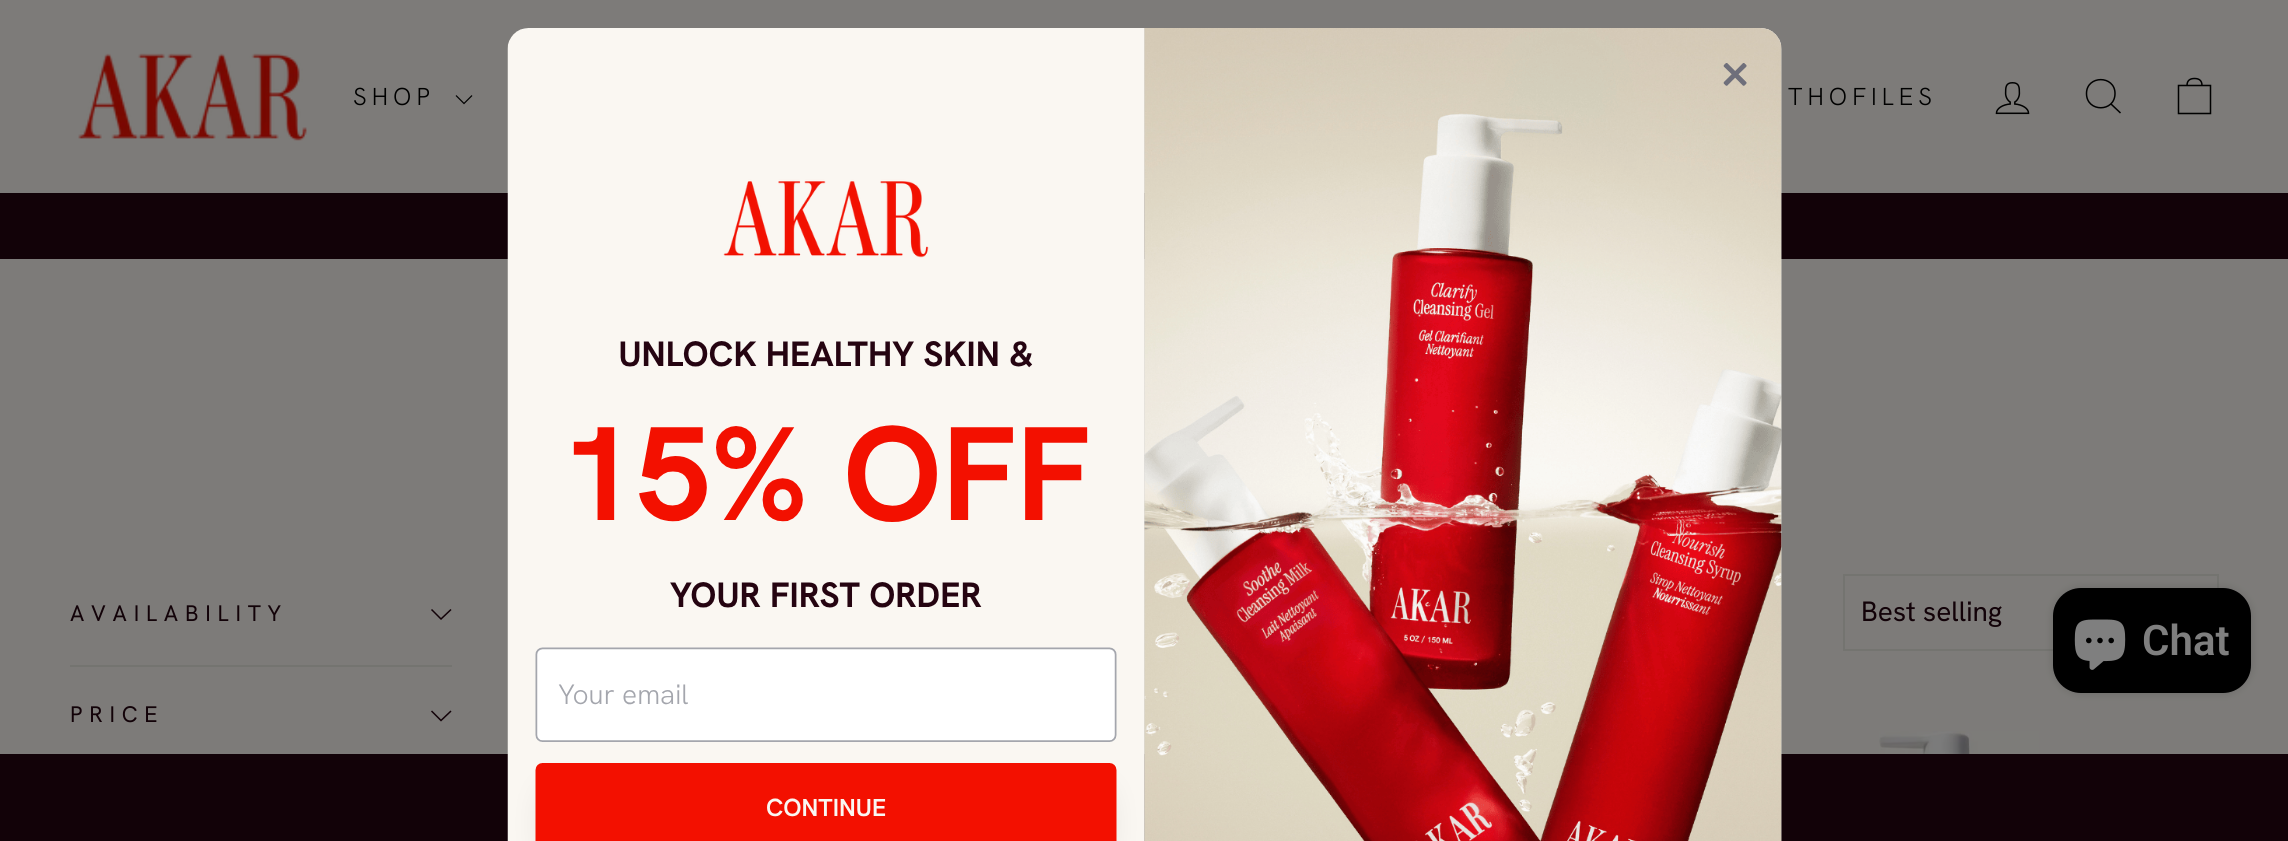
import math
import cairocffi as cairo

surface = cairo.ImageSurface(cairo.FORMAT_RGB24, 2288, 841)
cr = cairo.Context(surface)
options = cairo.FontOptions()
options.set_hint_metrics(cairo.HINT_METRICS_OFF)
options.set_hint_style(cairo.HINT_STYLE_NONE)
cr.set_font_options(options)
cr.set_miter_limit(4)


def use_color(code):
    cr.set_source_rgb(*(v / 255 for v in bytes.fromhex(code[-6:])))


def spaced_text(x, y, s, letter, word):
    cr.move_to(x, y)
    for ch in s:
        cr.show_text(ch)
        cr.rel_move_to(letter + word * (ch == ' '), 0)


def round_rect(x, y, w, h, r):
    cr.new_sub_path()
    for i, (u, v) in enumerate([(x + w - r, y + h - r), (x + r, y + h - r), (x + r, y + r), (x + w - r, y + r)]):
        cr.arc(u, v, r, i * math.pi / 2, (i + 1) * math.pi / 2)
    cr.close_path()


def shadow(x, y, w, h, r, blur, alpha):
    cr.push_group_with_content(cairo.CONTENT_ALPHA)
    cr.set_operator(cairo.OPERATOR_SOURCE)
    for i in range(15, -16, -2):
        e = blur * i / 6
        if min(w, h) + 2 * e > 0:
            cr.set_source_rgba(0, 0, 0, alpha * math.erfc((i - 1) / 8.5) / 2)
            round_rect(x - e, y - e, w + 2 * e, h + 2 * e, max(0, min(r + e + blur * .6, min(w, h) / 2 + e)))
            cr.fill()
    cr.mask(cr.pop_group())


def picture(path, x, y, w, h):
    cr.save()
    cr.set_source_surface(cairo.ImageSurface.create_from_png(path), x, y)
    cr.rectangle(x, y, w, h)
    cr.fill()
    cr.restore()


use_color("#faf7f2")
cr.paint()
use_color("#250411")
cr.rectangle(0, 193, 2288, 66)
cr.fill()
use_color("#000000")
shadow(0, 0, 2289, 193, 0, 1, 0.2)
use_color("#faf7f2")
cr.rectangle(0, 0, 2288, 193)
cr.fill()
picture("img2.png", 78, 53, 229, 88)
cr.select_font_face("Hanken Grotesk Light")
cr.set_font_size(24.5)
use_color("#000000")
spaced_text(353, 105, "SHOP", 5, 0)
cr.new_path()
cr.move_to(456, 95.5)
cr.line_to(464, 103.5)
cr.line_to(472, 95.5)
cr.set_line_width(1.2)
cr.stroke()
spaced_text(1788, 105, "THOFILES", 5, 0)
picture("img3.png", 1995, 82, 35, 33)
cr.new_path()
cr.move_to(2115, 93.5)
cr.curve_to(2115, 112.5, 2086.5, 112.5, 2086.5, 93.5)
cr.curve_to(2086.5, 75, 2115, 75, 2115, 93.5)
cr.close_path()
cr.move_to(2120.5, 113)
cr.line_to(2111, 104)
cr.set_line_width(1.5)
cr.stroke()
cr.new_path()
cr.move_to(2178.5, 85.5)
cr.line_to(2210.5, 85.5)
cr.line_to(2210.5, 113.5)
cr.line_to(2178.5, 113.5)
cr.close_path()
cr.move_to(2187, 85.5)
cr.curve_to(2187, 80, 2190.5, 78.5, 2194.5, 78.5)
cr.curve_to(2198.5, 78.5, 2202, 80, 2202, 85.5)
cr.stroke()
cr.select_font_face("Hanken Grotesk")
cr.set_font_size(22.5)
use_color("#250411")
spaced_text(70, 621, "AVAILABILITY", 6.75, 0)
cr.new_path()
cr.move_to(431.5, 609.5)
cr.line_to(441, 619)
cr.line_to(451, 609.5)
cr.stroke()
use_color("#e8e8e1")
cr.rectangle(70, 665, 382, 2)
cr.fill()
use_color("#250411")
spaced_text(70, 722, "PRICE", 6.75, 0)
cr.new_path()
cr.move_to(431.5, 711)
cr.line_to(441, 720.5)
cr.line_to(451, 711)
cr.stroke()
cr.rectangle(1844, 575, 374, 75)
use_color("#e8e8e1")
cr.set_line_width(2)
cr.stroke()
cr.set_font_size(28)
use_color("#250411")
cr.move_to(1861, 621)
cr.show_text("Best selling")
picture("img4.png", 1879, 731, 160, 23)
use_color("#000000")
shadow(2053, 588, 198, 105, 28, 4.5, 0.15)
use_color("#000000")
round_rect(2053, 588, 198, 105, 28)
cr.fill()
picture("img5.png", 2074, 619, 52, 51)
cr.select_font_face("Roboto SemiBold")
cr.set_font_size(42)
use_color("#ffffff")
cr.move_to(2142, 655)
cr.show_text("Chat")
use_color("#250411")
cr.rectangle(0, 754, 2288, 87)
cr.fill()
picture("img1.png", 0, 0, 2288, 841)
surface.write_to_png("result.png")
